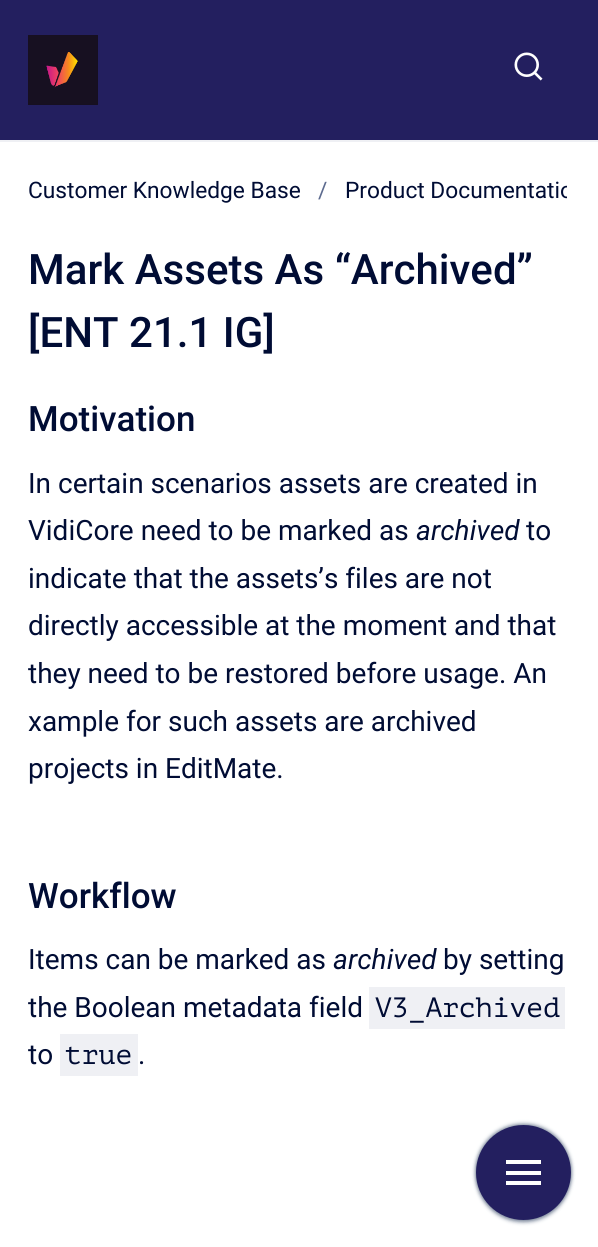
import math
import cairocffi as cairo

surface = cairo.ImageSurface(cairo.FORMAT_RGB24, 598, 1247)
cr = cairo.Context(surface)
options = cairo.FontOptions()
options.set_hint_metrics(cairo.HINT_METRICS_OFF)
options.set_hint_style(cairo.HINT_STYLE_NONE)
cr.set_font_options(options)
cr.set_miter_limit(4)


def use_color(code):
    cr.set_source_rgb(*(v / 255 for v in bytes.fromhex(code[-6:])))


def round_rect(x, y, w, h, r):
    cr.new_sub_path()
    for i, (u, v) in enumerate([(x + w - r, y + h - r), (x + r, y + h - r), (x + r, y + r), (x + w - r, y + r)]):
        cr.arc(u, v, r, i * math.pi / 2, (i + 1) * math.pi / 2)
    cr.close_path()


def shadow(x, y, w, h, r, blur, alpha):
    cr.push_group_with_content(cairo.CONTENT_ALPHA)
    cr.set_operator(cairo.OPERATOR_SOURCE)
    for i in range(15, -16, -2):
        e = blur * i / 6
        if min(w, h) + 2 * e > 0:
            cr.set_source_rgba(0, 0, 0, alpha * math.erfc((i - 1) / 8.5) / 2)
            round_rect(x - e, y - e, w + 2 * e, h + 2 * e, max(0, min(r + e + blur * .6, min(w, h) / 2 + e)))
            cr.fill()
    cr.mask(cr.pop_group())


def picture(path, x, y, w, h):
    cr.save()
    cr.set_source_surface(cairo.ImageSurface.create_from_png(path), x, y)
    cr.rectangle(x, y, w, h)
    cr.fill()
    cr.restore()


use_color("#ffffff")
cr.paint()
use_color("#231f5f")
cr.rectangle(0, 0, 598, 140)
cr.fill()
use_color("#eff0f4")
cr.rectangle(0, 140, 598, 2)
cr.fill()
picture("img1.png", 28, 35, 70, 70)
picture("img2.png", 514, 52, 29, 29)
cr.select_font_face("Roboto")
cr.set_font_size(22.75)
use_color("#000c34")
cr.move_to(28, 198)
cr.show_text("Customer Knowledge Base")
use_color("#5d6b8f")
cr.move_to(318, 198)
cr.show_text("/")
cr.save()
cr.rectangle(25, 170, 542, 42)
cr.clip()
use_color("#000c34")
cr.move_to(345, 198)
cr.show_text("Product Documentatio")
cr.restore()
cr.select_font_face("Roboto Medium")
cr.set_font_size(42)
use_color("#000c34")
cr.move_to(28, 284)
cr.show_text("Mark Assets As “Archived”")
cr.move_to(28, 347)
cr.show_text("[ENT 21.1 IG]")
cr.set_font_size(35)
cr.move_to(28, 431)
cr.show_text("Motivation")
cr.select_font_face("Roboto")
cr.set_font_size(28)
cr.move_to(28, 493)
cr.show_text("In certain scenarios assets are created in")
cr.move_to(28, 540)
cr.show_text("VidiCore need to be marked as")
cr.select_font_face("Roboto", cairo.FONT_SLANT_ITALIC)
cr.move_to(416, 540)
cr.show_text("archived")
cr.select_font_face("Roboto")
cr.move_to(526, 540)
cr.show_text("to")
cr.move_to(28, 588)
cr.show_text("indicate that the assets’s files are not")
cr.move_to(28, 635)
cr.show_text("directly accessible at the moment and that")
cr.move_to(28, 683)
cr.show_text("they need to be restored before usage. An")
cr.move_to(28, 731)
cr.show_text("xample for such assets are archived")
cr.move_to(28, 778)
cr.show_text("projects in EditMate.")
cr.select_font_face("Roboto Medium")
cr.set_font_size(35)
cr.move_to(28, 908)
cr.show_text("Workflow")
cr.select_font_face("Roboto")
cr.set_font_size(28)
cr.move_to(28, 969)
cr.show_text("Items can be marked as")
cr.select_font_face("Roboto", cairo.FONT_SLANT_ITALIC)
cr.move_to(333, 969)
cr.show_text("archived")
cr.select_font_face("Roboto")
cr.move_to(443, 969)
cr.show_text("by setting")
cr.move_to(28, 1017)
cr.show_text("the Boolean metadata field")
use_color("#eff0f4")
cr.rectangle(369, 987, 196, 42)
cr.fill()
cr.select_font_face("PT Mono")
use_color("#000c34")
cr.move_to(375, 1017)
cr.show_text("V3_Archived")
cr.select_font_face("Roboto")
cr.move_to(28, 1064)
cr.show_text("to")
use_color("#eff0f4")
cr.rectangle(60, 1034, 78, 42)
cr.fill()
cr.select_font_face("PT Mono")
use_color("#000c34")
cr.move_to(65, 1064)
cr.show_text("true")
cr.select_font_face("Roboto")
cr.move_to(138, 1064)
cr.show_text(".")
use_color("#7a869a")
shadow(476, 1124, 95, 94, 47, 2, 1)
shadow(476, 1127, 95, 95, 47.5, 2, 1)
use_color("#231f5f")
cr.arc(523.5, 1172.5, 47.5, 0, 2 * math.pi)
cr.fill()
use_color("#ffffff")
cr.rectangle(506, 1160, 35, 4)
cr.fill()
cr.rectangle(506, 1171, 35, 4)
cr.fill()
cr.rectangle(506, 1181, 35, 4)
cr.fill()
surface.write_to_png("result.png")
